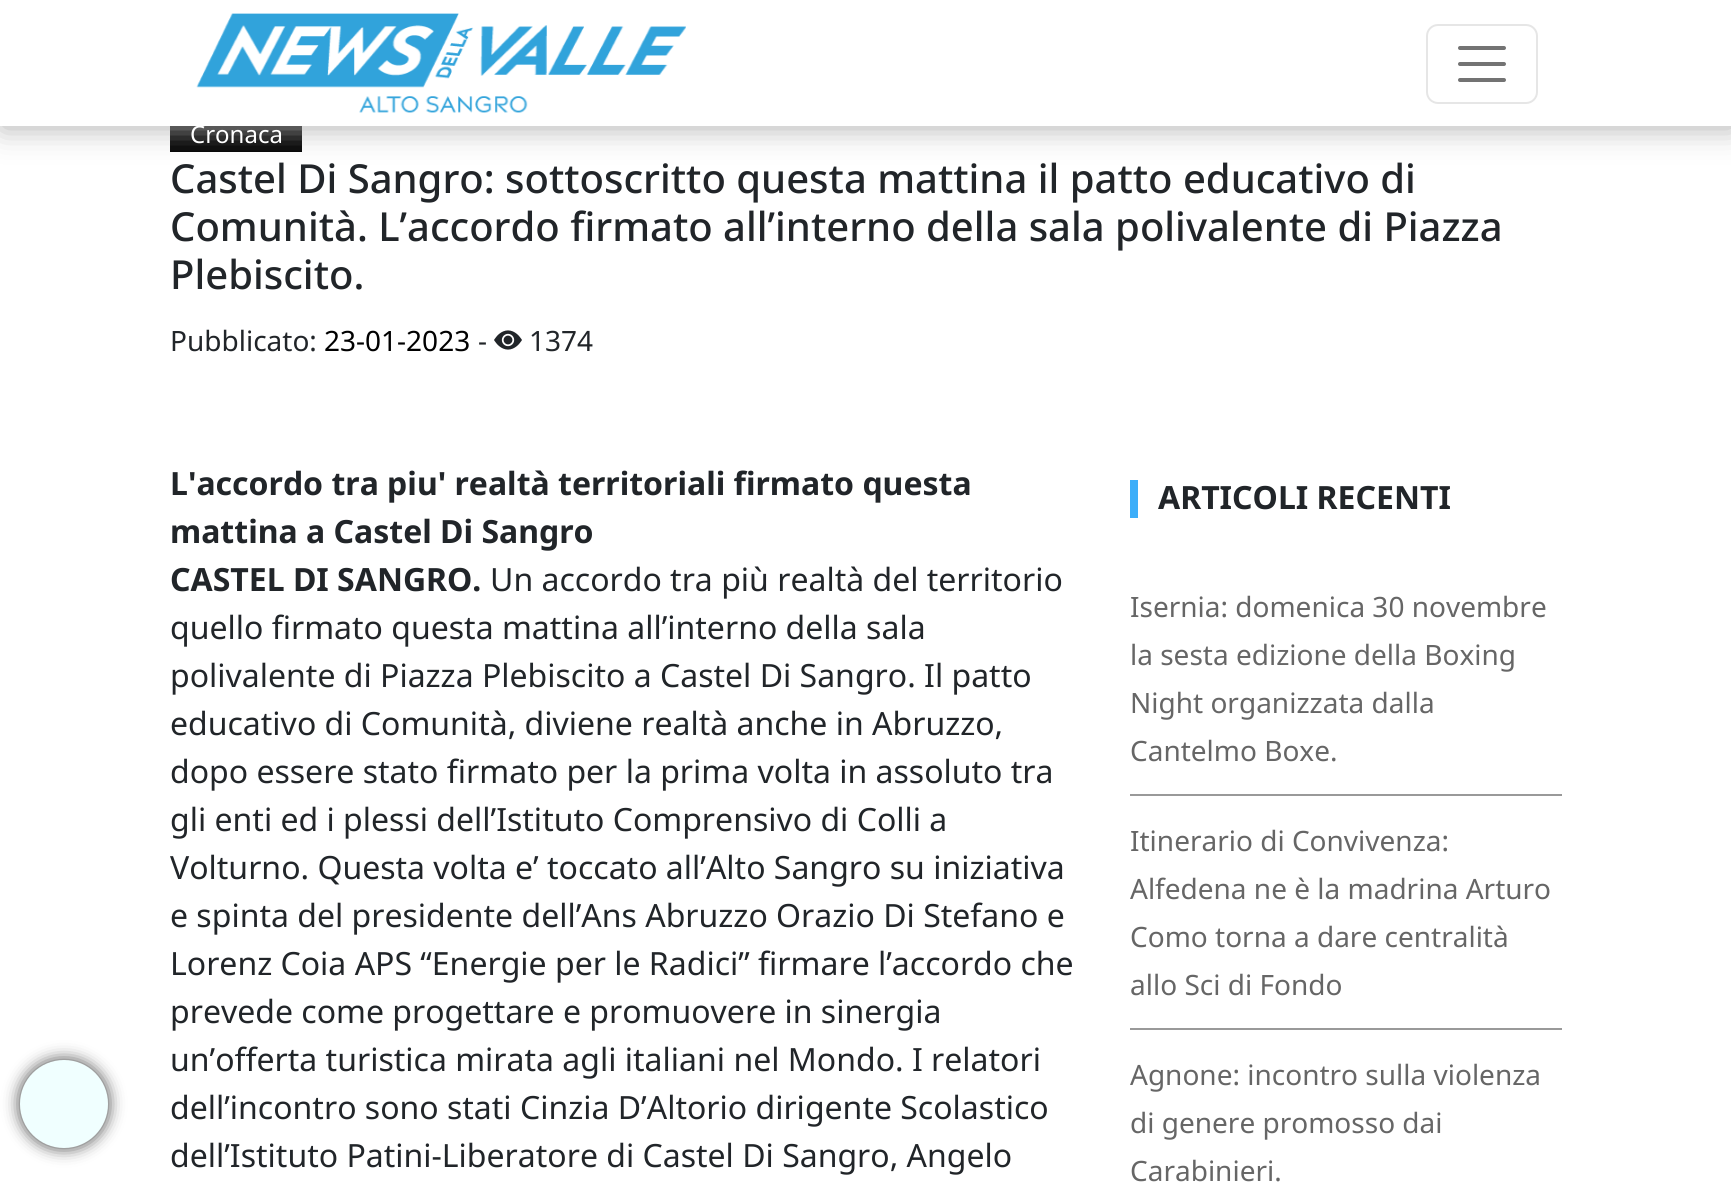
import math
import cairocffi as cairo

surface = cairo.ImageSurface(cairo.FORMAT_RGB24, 1731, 1187)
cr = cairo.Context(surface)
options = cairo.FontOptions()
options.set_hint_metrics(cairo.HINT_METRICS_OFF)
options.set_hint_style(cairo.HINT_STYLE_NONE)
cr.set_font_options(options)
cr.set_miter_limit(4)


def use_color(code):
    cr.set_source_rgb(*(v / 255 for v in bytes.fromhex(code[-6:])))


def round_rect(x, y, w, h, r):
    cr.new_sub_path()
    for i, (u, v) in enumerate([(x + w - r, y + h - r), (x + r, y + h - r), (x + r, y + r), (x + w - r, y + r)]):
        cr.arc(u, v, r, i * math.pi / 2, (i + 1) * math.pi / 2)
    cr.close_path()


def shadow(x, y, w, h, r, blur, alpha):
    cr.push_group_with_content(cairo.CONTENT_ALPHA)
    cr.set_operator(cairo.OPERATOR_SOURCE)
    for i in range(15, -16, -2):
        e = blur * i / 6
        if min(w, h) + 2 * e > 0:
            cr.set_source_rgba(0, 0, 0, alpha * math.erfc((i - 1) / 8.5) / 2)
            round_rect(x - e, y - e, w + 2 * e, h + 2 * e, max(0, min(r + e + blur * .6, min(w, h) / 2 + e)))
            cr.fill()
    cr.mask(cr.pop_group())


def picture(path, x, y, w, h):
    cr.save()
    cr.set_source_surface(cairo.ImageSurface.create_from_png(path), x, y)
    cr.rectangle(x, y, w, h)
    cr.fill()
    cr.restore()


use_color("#ffffff")
cr.paint()
use_color("#000000")
cr.rectangle(170, 126, 132, 26)
cr.fill()
use_color("#afafaf")
shadow(2, 2, 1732, 126, 0, 15, 1)
use_color("#ffffff")
cr.rectangle(0, 0, 1731, 126)
cr.fill()
picture("img1.png", 196, 13, 490, 100)
round_rect(1427, 25, 110, 78, 11)
use_color("#e6e6e6")
cr.stroke()
cr.new_path()
cr.move_to(1460, 48)
cr.line_to(1504, 48)
cr.move_to(1460, 64)
cr.line_to(1504, 64)
cr.move_to(1460, 80)
cr.line_to(1504, 80)
use_color("#737373")
cr.set_line_width(4)
cr.set_line_cap(cairo.LINE_CAP_ROUND)
cr.stroke()
cr.select_font_face("Noto Sans")
cr.set_font_size(24)
use_color("#ffffff")
cr.move_to(190, 143)
cr.show_text("Cronaca")
cr.select_font_face("Noto Sans Medium")
cr.set_font_size(40)
use_color("#212529")
cr.move_to(170, 193)
cr.show_text("Castel Di Sangro: sottoscritto questa mattina il patto educativo di")
cr.move_to(170, 241)
cr.show_text("Comunità. L’accordo firmato all’interno della sala polivalente di Piazza")
cr.move_to(170, 289)
cr.show_text("Plebiscito.")
cr.select_font_face("Noto Sans")
cr.set_font_size(28)
cr.move_to(170, 351)
cr.show_text("Pubblicato:")
use_color("#000000")
cr.move_to(324, 351)
cr.show_text("23-01-2023")
use_color("#212529")
cr.move_to(478, 351)
cr.show_text("-")
picture("img2.png", 494, 330, 28, 20)
cr.move_to(529, 351)
cr.show_text("1374")
use_color("#000000")
shadow(20, 1060, 88, 88, 44, 8, 0.75)
use_color("#f0ffff")
cr.arc(64, 1104, 44, 0, 2 * math.pi)
cr.fill()
cr.select_font_face("Noto Sans", cairo.FONT_SLANT_NORMAL, cairo.FONT_WEIGHT_BOLD)
cr.set_font_size(32)
use_color("#212529")
cr.move_to(170, 495)
cr.show_text("L'accordo tra piu' realtà territoriali firmato questa")
cr.move_to(170, 543)
cr.show_text("mattina a Castel Di Sangro")
cr.move_to(170, 591)
cr.show_text("CASTEL DI SANGRO.")
cr.select_font_face("Noto Sans")
cr.move_to(490, 591)
cr.show_text("Un accordo tra più realtà del territorio")
cr.move_to(170, 639)
cr.show_text("quello firmato questa mattina all’interno della sala")
cr.move_to(170, 687)
cr.show_text("polivalente di Piazza Plebiscito a Castel Di Sangro. Il patto")
cr.move_to(170, 735)
cr.show_text("educativo di Comunità, diviene realtà anche in Abruzzo,")
cr.move_to(170, 783)
cr.show_text("dopo essere stato firmato per la prima volta in assoluto tra")
cr.move_to(170, 831)
cr.show_text("gli enti ed i plessi dell’Istituto Comprensivo di Colli a")
cr.move_to(170, 879)
cr.show_text("Volturno. Questa volta e’ toccato all’Alto Sangro su iniziativa")
cr.move_to(170, 927)
cr.show_text("e spinta del presidente dell’Ans Abruzzo Orazio Di Stefano e")
cr.move_to(170, 975)
cr.show_text("Lorenz Coia APS “Energie per le Radici” firmare l’accordo che")
cr.move_to(170, 1023)
cr.show_text("prevede come progettare e promuovere in sinergia")
cr.move_to(170, 1071)
cr.show_text("un’offerta turistica mirata agli italiani nel Mondo. I relatori")
cr.move_to(170, 1119)
cr.show_text("dell’incontro sono stati Cinzia D’Altorio dirigente Scolastico")
cr.move_to(170, 1167)
cr.show_text("dell’Istituto Patini-Liberatore di Castel Di Sangro, Angelo")
use_color("#3daef9")
cr.rectangle(1130, 480, 8, 38)
cr.fill()
cr.select_font_face("Noto Sans", cairo.FONT_SLANT_NORMAL, cairo.FONT_WEIGHT_BOLD)
use_color("#212529")
cr.move_to(1158, 509)
cr.show_text("ARTICOLI RECENTI")
use_color("#999999")
cr.rectangle(1130, 794, 432, 2)
cr.fill()
cr.select_font_face("Noto Sans")
cr.set_font_size(28)
use_color("#666666")
cr.move_to(1130, 617)
cr.show_text("Isernia: domenica 30 novembre")
cr.move_to(1130, 665)
cr.show_text("la sesta edizione della Boxing")
cr.move_to(1130, 713)
cr.show_text("Night organizzata dalla")
cr.move_to(1130, 761)
cr.show_text("Cantelmo Boxe.")
use_color("#999999")
cr.rectangle(1130, 1028, 432, 2)
cr.fill()
use_color("#666666")
cr.move_to(1130, 851)
cr.show_text("Itinerario di Convivenza:")
cr.move_to(1130, 899)
cr.show_text("Alfedena ne è la madrina Arturo")
cr.move_to(1130, 947)
cr.show_text("Como torna a dare centralità")
cr.move_to(1130, 995)
cr.show_text("allo Sci di Fondo")
cr.move_to(1130, 1085)
cr.show_text("Agnone: incontro sulla violenza")
cr.move_to(1130, 1133)
cr.show_text("di genere promosso dai")
cr.move_to(1130, 1181)
cr.show_text("Carabinieri.")
surface.write_to_png("result.png")
